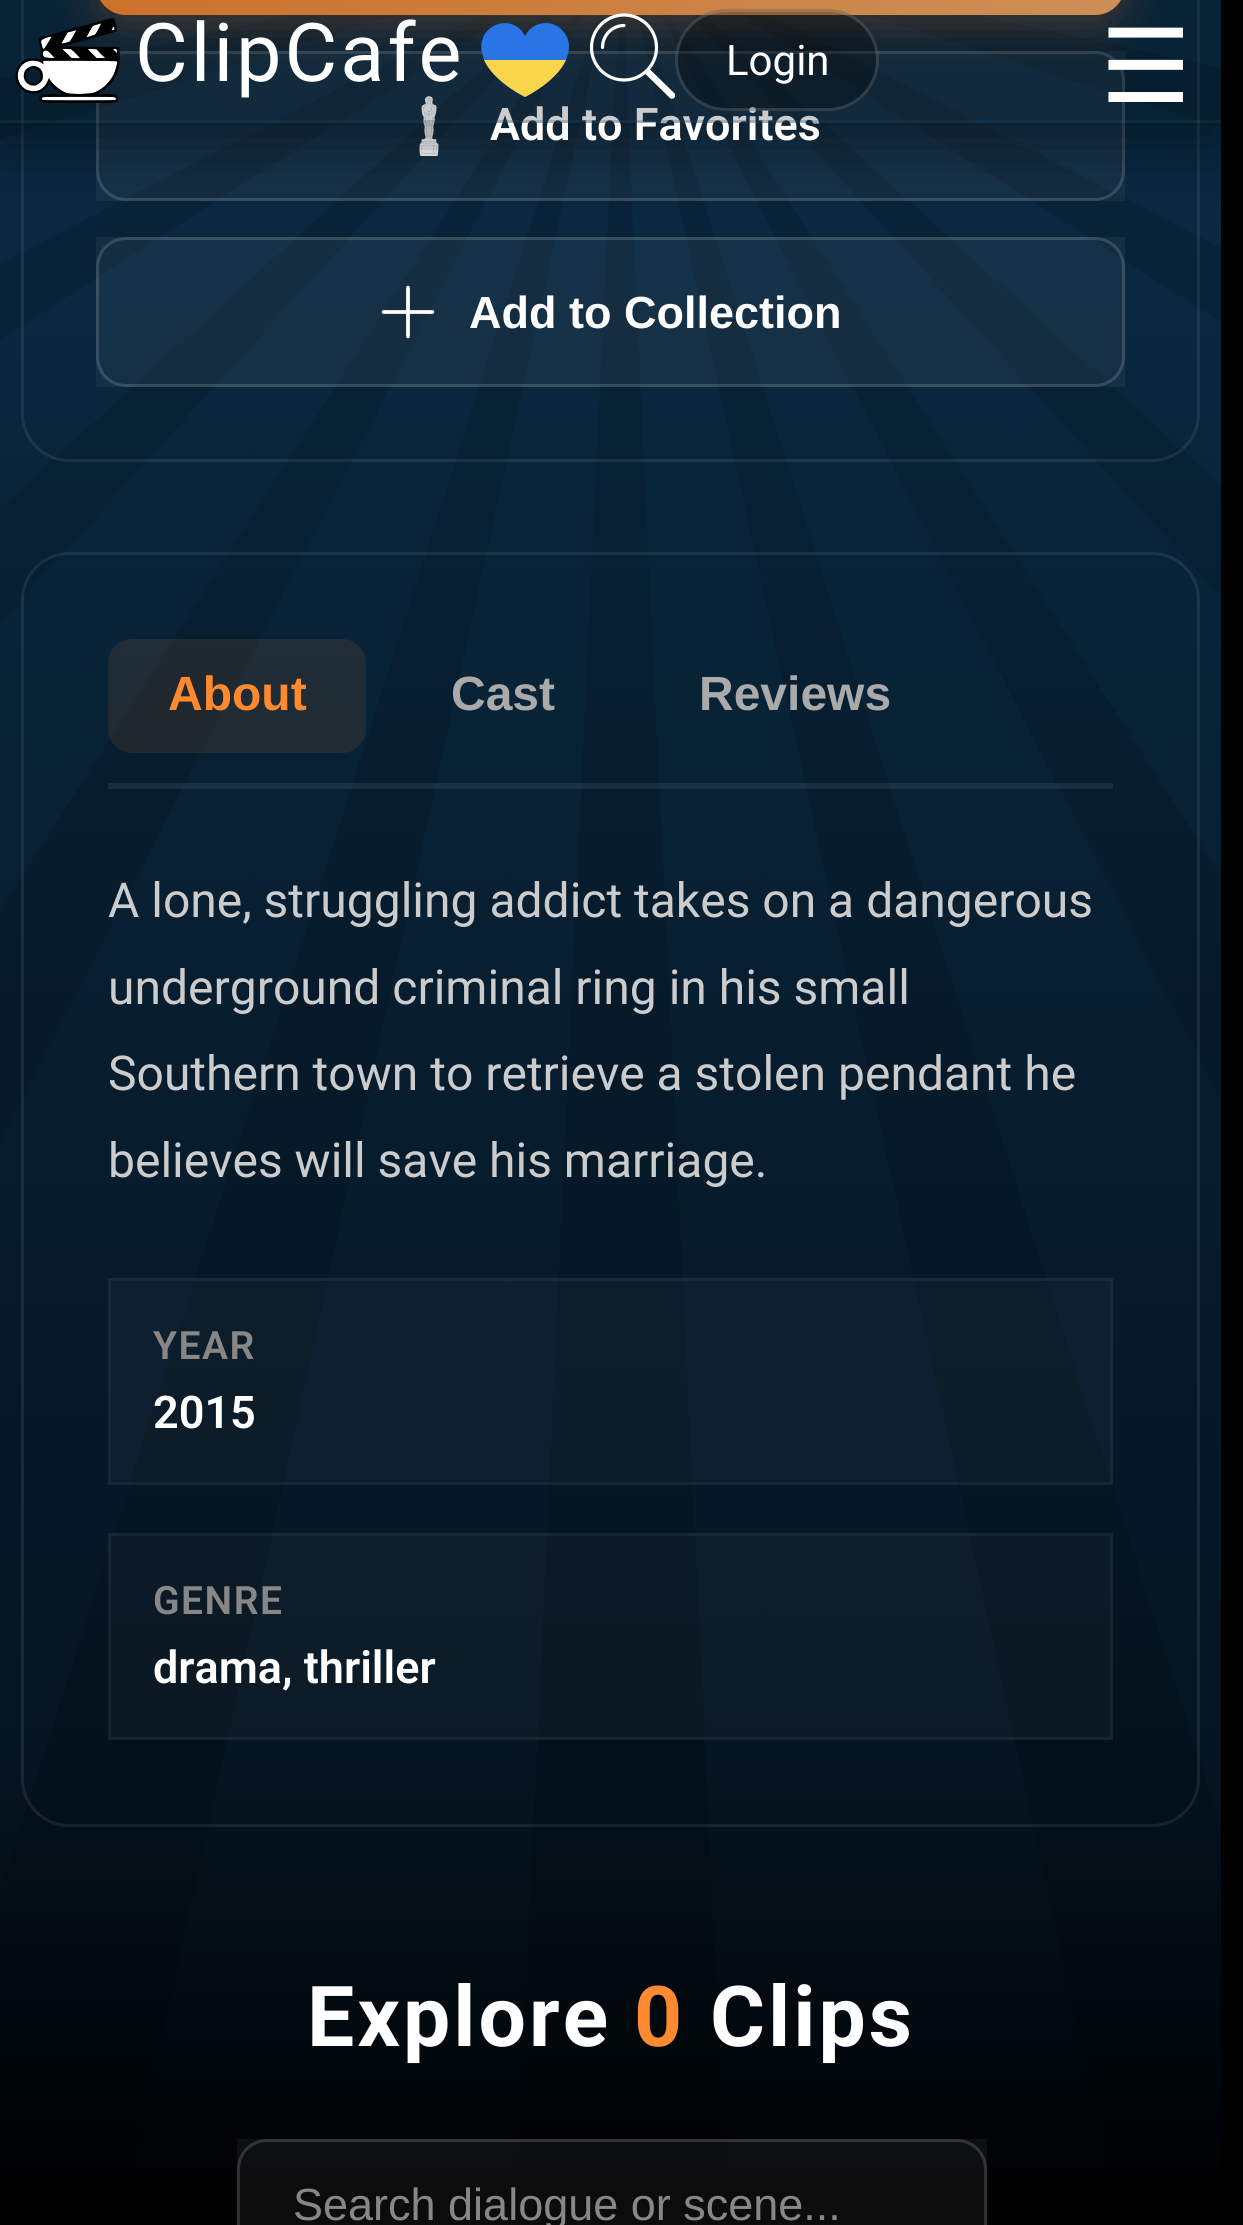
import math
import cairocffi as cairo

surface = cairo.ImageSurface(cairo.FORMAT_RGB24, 1243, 2225)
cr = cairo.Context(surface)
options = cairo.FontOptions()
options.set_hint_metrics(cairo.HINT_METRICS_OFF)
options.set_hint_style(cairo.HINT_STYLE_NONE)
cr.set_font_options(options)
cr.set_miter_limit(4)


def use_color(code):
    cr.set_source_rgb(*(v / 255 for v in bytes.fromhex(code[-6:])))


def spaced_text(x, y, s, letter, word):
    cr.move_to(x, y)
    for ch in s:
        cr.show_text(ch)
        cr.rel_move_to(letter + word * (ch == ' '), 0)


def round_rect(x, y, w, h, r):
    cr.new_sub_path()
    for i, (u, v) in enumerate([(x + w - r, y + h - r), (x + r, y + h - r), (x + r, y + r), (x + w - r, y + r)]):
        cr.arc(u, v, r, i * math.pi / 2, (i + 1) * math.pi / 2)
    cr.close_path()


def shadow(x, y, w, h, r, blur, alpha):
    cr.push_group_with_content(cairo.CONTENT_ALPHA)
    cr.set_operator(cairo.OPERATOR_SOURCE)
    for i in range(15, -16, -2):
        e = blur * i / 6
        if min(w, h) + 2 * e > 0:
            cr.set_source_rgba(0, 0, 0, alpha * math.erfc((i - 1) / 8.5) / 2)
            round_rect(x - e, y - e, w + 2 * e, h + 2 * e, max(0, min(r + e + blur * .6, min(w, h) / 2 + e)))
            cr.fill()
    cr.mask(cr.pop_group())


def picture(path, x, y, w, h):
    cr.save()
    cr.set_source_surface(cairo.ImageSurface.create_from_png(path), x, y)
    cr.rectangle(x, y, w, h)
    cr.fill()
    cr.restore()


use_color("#000000")
cr.paint()
picture("img1.png", 0, 0, 1221, 2169)
round_rect(22.5, -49.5, 1176, 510, 46.5)
cr.set_source_rgba(1, 1, 1, 0.08)
cr.set_line_width(3)
cr.stroke()
use_color("#ff892e")
shadow(96, -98, 1029, 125, 30, 22.5, 0.3)
gradient = cairo.LinearGradient(320, -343, 902, 238)
gradient.add_color_stop_rgba(0, 1, 0.537, 0.18, 1)
gradient.add_color_stop_rgba(1, 1, 0.706, 0.431, 1)
cr.set_source(gradient)
round_rect(96, -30, 1029, 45, 30)
cr.fill()
cr.set_source_rgba(1, 1, 1, 0.05)
cr.rectangle(96, 51, 1029, 150)
cr.fill()
round_rect(97.5, 52.5, 1026, 147, 28.5)
cr.set_source_rgba(1, 1, 1, 0.15)
cr.stroke()
picture("img3.png", 419, 96, 20, 60)
cr.set_source_rgba(1, 1, 1, 0.05)
cr.rectangle(96, 237, 1029, 150)
cr.fill()
round_rect(97.5, 238.5, 1026, 147, 28.5)
cr.set_source_rgba(1, 1, 1, 0.15)
cr.stroke()
cr.save()
cr.set_fill_rule(cairo.FILL_RULE_EVEN_ODD)
cr.new_path()
cr.move_to(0, 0)
cr.line_to(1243, 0)
cr.line_to(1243, 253)
cr.line_to(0, 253)
cr.close_path()
cr.move_to(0, 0)
cr.line_to(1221, 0)
cr.line_to(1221, 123)
cr.line_to(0, 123)
cr.close_path()
cr.clip()
use_color("#000000")
shadow(0, 21, 1221, 123, 0, 36, 0.44)
cr.restore()
cr.select_font_face("Roboto SemiBold")
cr.set_font_size(45)
use_color("#ffffff")
cr.move_to(490, 140)
cr.show_text("Add to Favorites")
cr.set_source_rgba(0, 0, 0, 0.2)
cr.rectangle(0, 0, 1221, 123)
cr.fill()
cr.set_source_rgba(0.09, 0.302, 0.455, 0.24)
cr.rectangle(0, 120, 1221, 3)
cr.fill()
picture("img2.png", 15, 17, 105, 86)
cr.select_font_face("Roboto")
cr.set_font_size(81)
use_color("#ffffff")
spaced_text(135, 81, "ClipCafe", 3, 0)
use_color("#2a75e6")
cr.new_path()
cr.move_to(546, 23)
cr.curve_to(537, 23, 529, 28, 525, 36)
cr.curve_to(511, 8, 464, 29, 488, 67)
cr.curve_to(497, 80, 511, 90, 525, 97)
cr.curve_to(525, 97, 569, 76, 569, 46)
cr.curve_to(569, 34, 558, 23, 546, 23)
cr.close_path()
cr.fill()
use_color("#f9d549")
cr.new_path()
cr.move_to(484, 60)
cr.curve_to(494, 82, 525, 97, 525, 97)
cr.curve_to(525, 97, 556, 82, 566, 60)
cr.close_path()
cr.fill()
cr.arc(624, 47.5, 32.5, 0, 2 * math.pi)
use_color("#ffffff")
cr.set_line_width(3.2)
cr.stroke()
cr.new_path()
cr.move_to(602.5, 47.5)
cr.curve_to(602.5, 35.5, 612, 25.5, 624, 25.5)
cr.set_line_cap(cairo.LINE_CAP_ROUND)
cr.set_line_join(cairo.LINE_JOIN_ROUND)
cr.stroke()
cr.save()
cr.rectangle(585, 9, 90, 90)
cr.clip()
cr.new_path()
cr.move_to(648, 72)
cr.line_to(672, 95.5)
cr.set_line_width(6.5)
cr.stroke()
cr.restore()
cr.set_source_rgba(0, 0, 0, 0.3)
round_rect(675, 9, 204, 102, 51)
cr.fill()
round_rect(676.5, 10.5, 201, 99, 49.5)
cr.set_source_rgba(1, 1, 1, 0.15)
cr.set_line_width(3)
cr.set_line_cap(cairo.LINE_CAP_BUTT)
cr.set_line_join(cairo.LINE_JOIN_MITER)
cr.stroke()
cr.set_font_size(42)
use_color("#ffffff")
cr.move_to(726, 75)
cr.show_text("Login")
cr.select_font_face("DejaVu Sans")
cr.set_font_size(102)
cr.move_to(1100, 102)
cr.show_text("☰")
picture("img4.png", 381, 285, 54, 54)
cr.select_font_face("Liberation Sans", cairo.FONT_SLANT_NORMAL, cairo.FONT_WEIGHT_BOLD)
cr.set_font_size(45)
cr.move_to(469, 328)
cr.show_text("Add to Collection")
round_rect(22.5, 553.5, 1176, 1272, 46.5)
cr.set_source_rgba(1, 1, 1, 0.08)
cr.stroke()
cr.rectangle(108, 783, 1005, 6)
cr.fill()
cr.set_source_rgba(1, 0.537, 0.18, 0.1)
round_rect(108, 639, 258, 114, 24)
cr.fill()
cr.set_font_size(48)
use_color("#ff892e")
cr.move_to(168, 710)
cr.show_text("About")
use_color("#aaaaaa")
cr.move_to(451, 710)
cr.show_text("Cast")
cr.move_to(699, 710)
cr.show_text("Reviews")
cr.select_font_face("Roboto")
use_color("#cccccc")
cr.move_to(108, 917)
cr.show_text("A lone, struggling addict takes on a dangerous")
cr.move_to(108, 1004)
cr.show_text("underground criminal ring in his small")
cr.move_to(108, 1090)
cr.show_text("Southern town to retrieve a stolen pendant he")
cr.move_to(108, 1177)
cr.show_text("believes will save his marriage.")
cr.set_source_rgba(1, 1, 1, 0.03)
cr.rectangle(108, 1278, 1005, 207)
cr.fill()
cr.rectangle(109.5, 1279.5, 1002, 204)
cr.set_source_rgba(1, 1, 1, 0.05)
cr.stroke()
cr.select_font_face("Roboto SemiBold")
cr.set_font_size(39)
use_color("#878787")
spaced_text(153, 1359, "YEAR", 1.5, 0)
cr.set_font_size(45)
use_color("#ffffff")
cr.move_to(153, 1428)
cr.show_text("2015")
cr.set_source_rgba(1, 1, 1, 0.03)
cr.rectangle(108, 1533, 1005, 207)
cr.fill()
cr.rectangle(109.5, 1534.5, 1002, 204)
cr.set_source_rgba(1, 1, 1, 0.05)
cr.stroke()
cr.set_font_size(39)
use_color("#878787")
spaced_text(153, 1614, "GENRE", 1.5, 0)
cr.set_font_size(45)
use_color("#ffffff")
cr.move_to(153, 1683)
cr.show_text("drama, thriller")
cr.select_font_face("Roboto", cairo.FONT_SLANT_NORMAL, cairo.FONT_WEIGHT_BOLD)
cr.set_font_size(84)
spaced_text(307, 2046, "Explore", 3, 0)
use_color("#ff892e")
spaced_text(634, 2046, "0", 3, 0)
use_color("#ffffff")
spaced_text(710, 2046, "Clips", 3, 0)
cr.set_source_rgba(1, 1, 1, 0.05)
cr.rectangle(237, 2139, 750, 86)
cr.fill()
round_rect(238.5, 2140.5, 747, 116, 28.5)
cr.set_source_rgba(1, 1, 1, 0.15)
cr.stroke()
cr.select_font_face("Liberation Sans")
cr.set_font_size(45)
use_color("#878787")
cr.move_to(293, 2220)
cr.show_text("Search dialogue or scene...")
surface.write_to_png("result.png")
